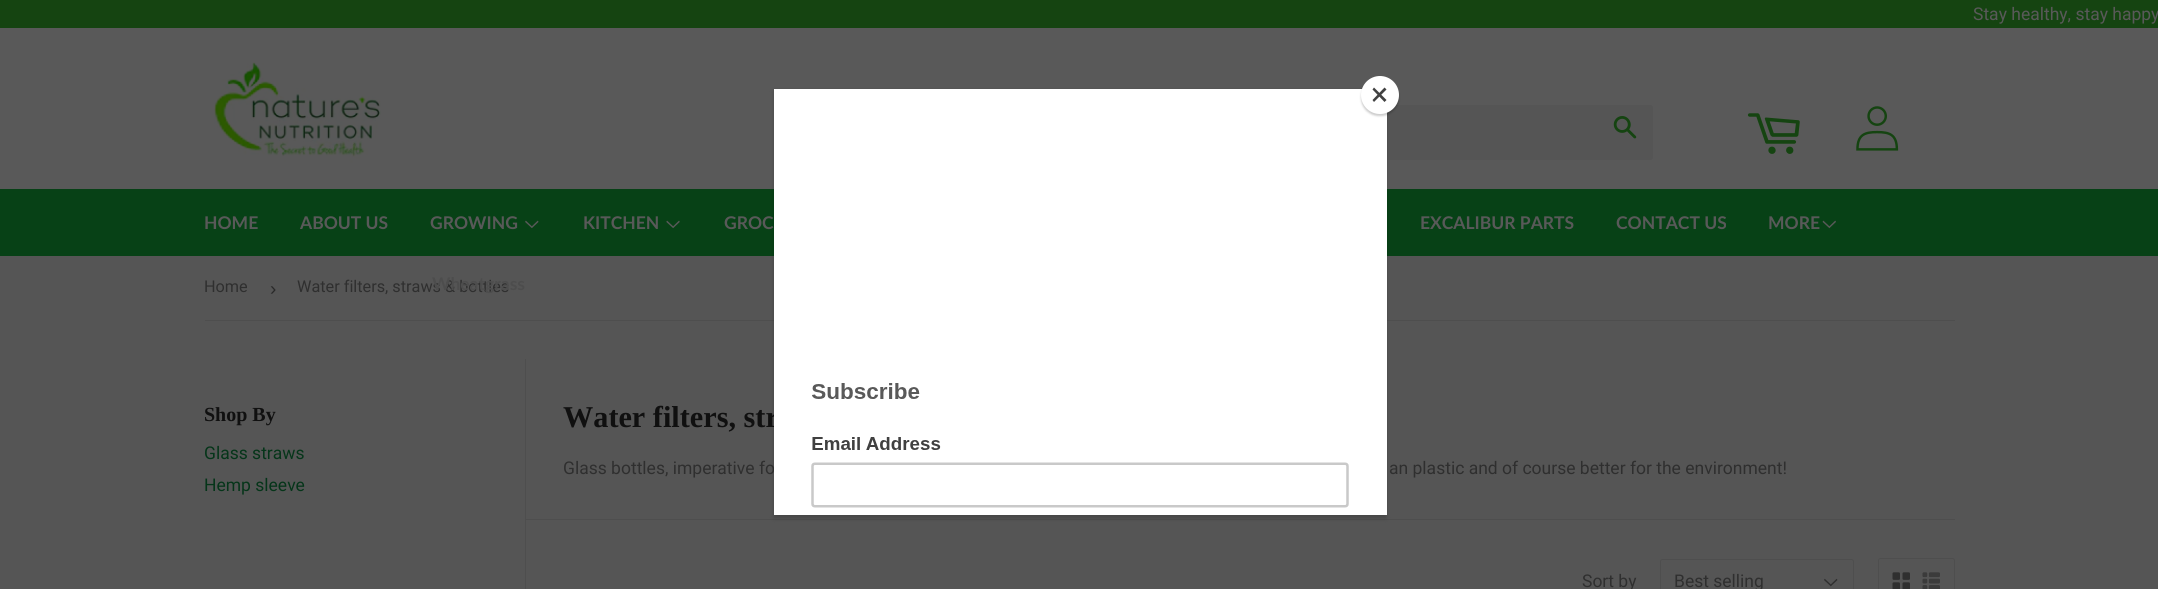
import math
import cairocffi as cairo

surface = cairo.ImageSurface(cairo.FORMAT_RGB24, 2158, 589)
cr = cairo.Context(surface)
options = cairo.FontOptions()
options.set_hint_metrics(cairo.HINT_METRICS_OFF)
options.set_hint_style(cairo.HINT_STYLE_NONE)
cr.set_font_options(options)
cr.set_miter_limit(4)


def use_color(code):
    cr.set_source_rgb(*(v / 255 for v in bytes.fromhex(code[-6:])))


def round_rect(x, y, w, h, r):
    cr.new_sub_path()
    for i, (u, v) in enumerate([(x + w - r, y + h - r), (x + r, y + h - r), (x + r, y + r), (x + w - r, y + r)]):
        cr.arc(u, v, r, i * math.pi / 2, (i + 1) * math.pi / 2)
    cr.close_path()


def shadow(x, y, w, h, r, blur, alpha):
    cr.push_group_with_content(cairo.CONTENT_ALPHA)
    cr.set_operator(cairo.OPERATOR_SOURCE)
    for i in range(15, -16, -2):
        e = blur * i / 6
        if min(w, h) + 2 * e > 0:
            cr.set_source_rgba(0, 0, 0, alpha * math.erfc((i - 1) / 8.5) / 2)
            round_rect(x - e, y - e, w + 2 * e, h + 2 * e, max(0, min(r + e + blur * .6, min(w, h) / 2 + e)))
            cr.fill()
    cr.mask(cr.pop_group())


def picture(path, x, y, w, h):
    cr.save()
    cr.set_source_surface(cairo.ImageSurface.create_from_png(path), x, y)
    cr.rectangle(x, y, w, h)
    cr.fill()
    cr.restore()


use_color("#555555")
cr.paint()
use_color("#595959")
cr.rectangle(0, 28, 2158, 161)
cr.fill()
use_color("#154411")
cr.rectangle(0, 0, 2158, 28)
cr.fill()
cr.select_font_face("Roboto")
cr.set_font_size(17.5)
use_color("#595959")
cr.move_to(1973, 20)
cr.show_text("Stay healthy, stay happy")
picture("img1.png", 214, 62, 167, 101)
use_color("#555555")
round_rect(1128, 105, 525, 55, 2.5)
cr.fill()
picture("img2.png", 1613, 116, 24, 23)
picture("img3.png", 1747, 113, 53, 41)
picture("img4.png", 1856, 106, 43, 45)
use_color("#074116")
cr.rectangle(0, 189, 2158, 67)
cr.fill()
cr.select_font_face("Lato", cairo.FONT_SLANT_NORMAL, cairo.FONT_WEIGHT_BOLD)
use_color("#595959")
cr.move_to(204, 229)
cr.show_text("HOME")
cr.move_to(300, 229)
cr.show_text("ABOUT US")
cr.move_to(430, 229)
cr.show_text("GROWING")
picture("img5.png", 525, 220, 14, 9)
cr.select_font_face("Roboto")
cr.set_font_size(16.25)
use_color("#2f2f2f")
cr.move_to(297, 292)
cr.show_text("Water filters, straws & bottles")
cr.select_font_face("Lato", cairo.FONT_SLANT_NORMAL, cairo.FONT_WEIGHT_BOLD)
cr.set_font_size(17.5)
use_color("#4d4d4d")
cr.move_to(432, 290)
cr.show_text("Wheatgrass")
use_color("#595959")
cr.move_to(583, 229)
cr.show_text("KITCHEN")
picture("img6.png", 666, 220, 14, 9)
cr.move_to(724, 229)
cr.show_text("GROC")
cr.move_to(1420, 229)
cr.show_text("EXCALIBUR PARTS")
cr.move_to(1616, 229)
cr.show_text("CONTACT US")
cr.move_to(1768, 229)
cr.show_text("MORE")
picture("img7.png", 1822, 220, 14, 9)
use_color("#4e4e4e")
cr.rectangle(205, 320, 1750, 1)
cr.fill()
cr.rectangle(526, 519, 1429, 1)
cr.fill()
use_color("#000000")
shadow(774, 91, 612, 427, 0, 2.5, 0.2)
cr.select_font_face("Liberation Serif", cairo.FONT_SLANT_NORMAL, cairo.FONT_WEIGHT_BOLD)
cr.set_font_size(30.25)
use_color("#101010")
cr.move_to(563, 427)
cr.show_text("Water filters, str")
cr.select_font_face("Roboto")
cr.set_font_size(17.5)
use_color("#2f2f2f")
cr.move_to(563, 474)
cr.show_text("Glass bottles, imperative fo")
picture("img8.png", 774, 89, 613, 426)
use_color("#000000")
shadow(1361, 79, 38, 37, 18.5, 1, 0.2)
use_color("#ffffff")
cr.arc(1380, 95, 19, 0, 2 * math.pi)
cr.fill()
use_color("#414141")
cr.new_path()
cr.move_to(1384.5, 87.5)
cr.line_to(1386.5, 89.5)
cr.line_to(1374, 102)
cr.line_to(1372.5, 100)
cr.close_path()
cr.fill()
cr.new_path()
cr.move_to(1372.5, 89.5)
cr.line_to(1374, 87.5)
cr.line_to(1386.5, 100)
cr.line_to(1384.5, 102)
cr.close_path()
cr.fill()
cr.set_font_size(16.25)
use_color("#2f2f2f")
cr.move_to(204, 292)
cr.show_text("Home")
cr.select_font_face("Liberation Sans")
cr.set_font_size(19)
use_color("#292929")
cr.move_to(270, 295)
cr.show_text("›")
cr.select_font_face("Liberation Serif", cairo.FONT_SLANT_NORMAL, cairo.FONT_WEIGHT_BOLD)
cr.set_font_size(20)
use_color("#101010")
cr.move_to(204, 421)
cr.show_text("Shop By")
cr.select_font_face("Roboto")
cr.set_font_size(17.5)
use_color("#053519")
cr.move_to(204, 459)
cr.show_text("Glass straws")
cr.move_to(204, 491)
cr.show_text("Hemp sleeve")
use_color("#4e4e4e")
cr.rectangle(525, 359, 1, 230)
cr.fill()
use_color("#2f2f2f")
cr.move_to(1389, 474)
cr.show_text("an plastic and of course better for the environment!")
cr.move_to(1582, 587)
cr.show_text("Sort by")
picture("img9.png", 1824, 578, 14, 9)
round_rect(1660.5, 559.5, 193, 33, 2)
use_color("#4e4e4e")
cr.set_line_width(1)
cr.stroke()
use_color("#2f2f2f")
cr.move_to(1674, 587)
cr.show_text("Best selling")
round_rect(1878.5, 558.5, 76, 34, 2)
use_color("#4e4e4e")
cr.stroke()
picture("img10.png", 1892, 572, 18, 17)
picture("img11.png", 1922, 572, 18, 17)
surface.write_to_png("result.png")
